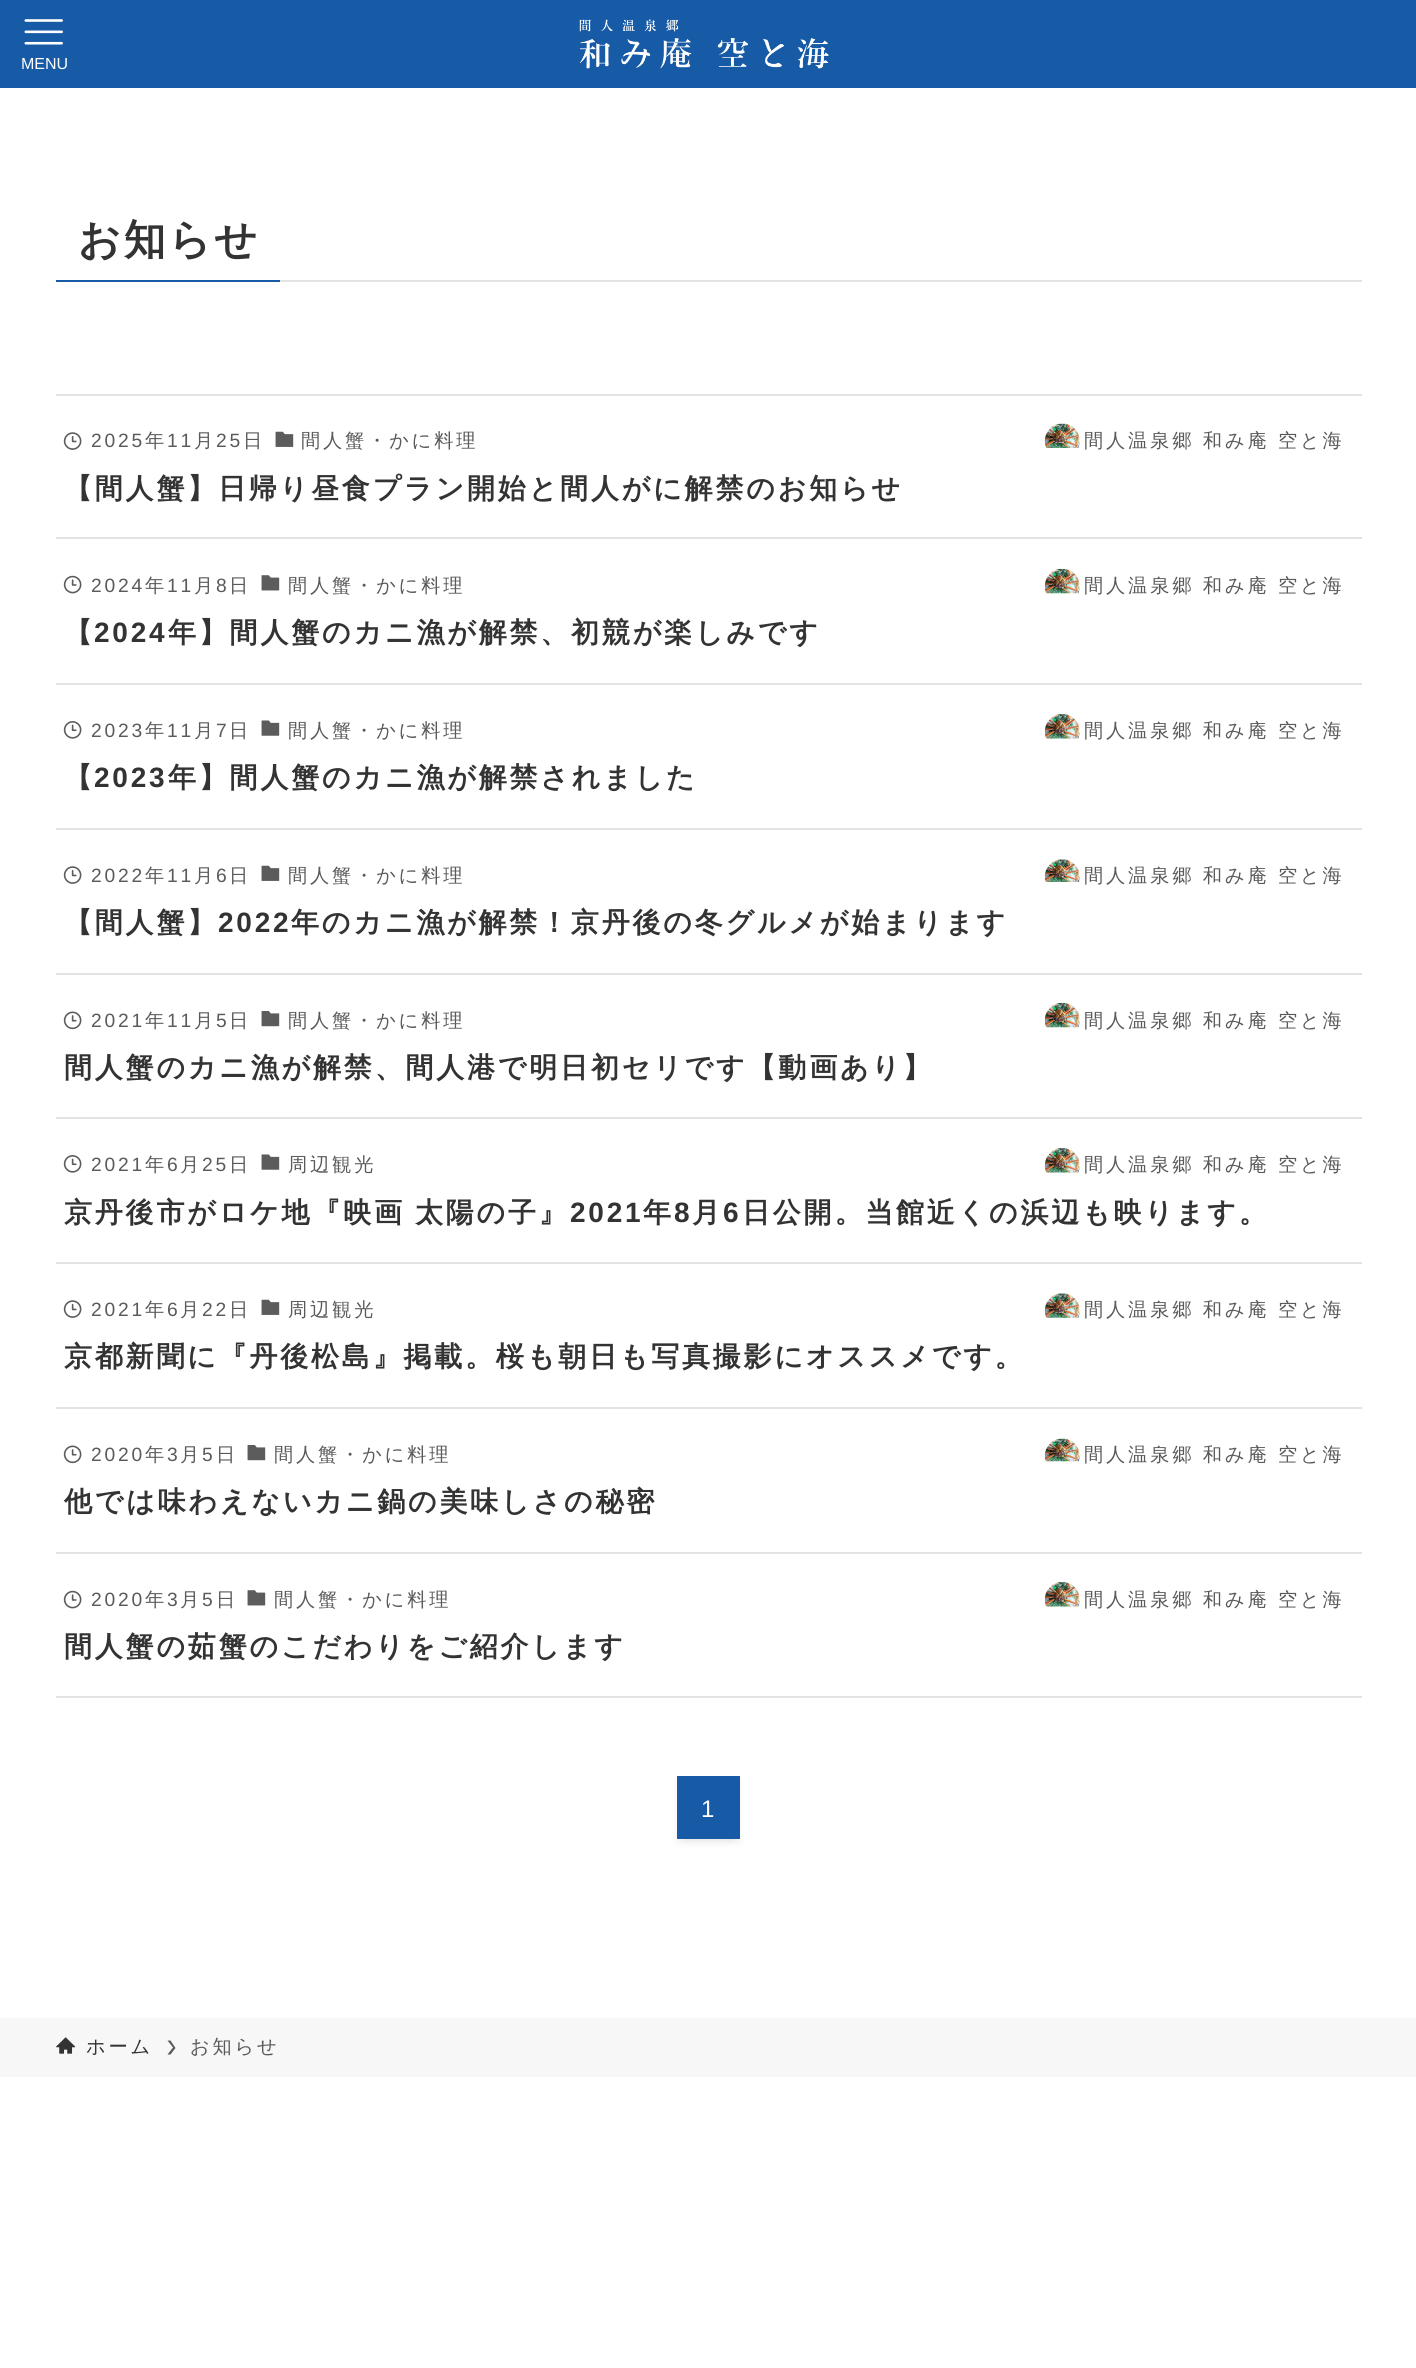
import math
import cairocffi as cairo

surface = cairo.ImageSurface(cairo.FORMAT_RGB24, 1416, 2368)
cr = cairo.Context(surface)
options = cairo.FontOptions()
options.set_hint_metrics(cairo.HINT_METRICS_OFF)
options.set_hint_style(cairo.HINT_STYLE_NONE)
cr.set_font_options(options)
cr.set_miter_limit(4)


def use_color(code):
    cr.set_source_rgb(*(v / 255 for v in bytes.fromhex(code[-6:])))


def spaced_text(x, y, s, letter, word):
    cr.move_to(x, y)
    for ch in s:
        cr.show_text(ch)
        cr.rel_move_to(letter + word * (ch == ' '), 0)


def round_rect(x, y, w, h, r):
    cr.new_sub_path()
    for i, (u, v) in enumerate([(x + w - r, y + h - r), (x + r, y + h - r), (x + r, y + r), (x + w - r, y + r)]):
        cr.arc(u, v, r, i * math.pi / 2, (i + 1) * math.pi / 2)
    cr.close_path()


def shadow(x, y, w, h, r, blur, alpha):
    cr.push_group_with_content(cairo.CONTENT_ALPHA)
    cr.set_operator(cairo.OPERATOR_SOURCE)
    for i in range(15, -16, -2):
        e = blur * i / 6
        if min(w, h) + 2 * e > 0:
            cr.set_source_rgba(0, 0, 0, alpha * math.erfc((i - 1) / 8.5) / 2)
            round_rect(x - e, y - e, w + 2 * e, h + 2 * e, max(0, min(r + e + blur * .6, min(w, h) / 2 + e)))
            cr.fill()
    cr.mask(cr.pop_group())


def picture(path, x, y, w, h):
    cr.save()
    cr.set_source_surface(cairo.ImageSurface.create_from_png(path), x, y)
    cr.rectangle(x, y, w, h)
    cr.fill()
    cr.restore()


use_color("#ffffff")
cr.paint()
use_color("#175aa5")
cr.rectangle(0, 0, 1416, 88)
cr.fill()
picture("img1.png", 24, 19, 39, 26)
cr.select_font_face("Liberation Sans")
cr.set_font_size(16)
use_color("#ffffff")
cr.move_to(21, 69)
cr.show_text("MENU")
picture("img2.png", 579, 19, 250, 50)
use_color("#e3e3e3")
cr.rectangle(280, 280, 1082, 2)
cr.fill()
use_color("#175aa5")
cr.rectangle(56, 280, 224, 2)
cr.fill()
cr.select_font_face("WenQuanYi Zen Hei", cairo.FONT_SLANT_NORMAL, cairo.FONT_WEIGHT_BOLD)
cr.set_font_size(42)
use_color("#333333")
spaced_text(78, 254, "お知らせ", 2.8, 0)
use_color("#e3e3e3")
cr.rectangle(56, 394, 1306, 2)
cr.fill()
cr.rectangle(56, 537, 1306, 2)
cr.fill()
picture("img3.png", 63, 432, 19, 18)
cr.select_font_face("Liberation Sans")
cr.set_font_size(19.25)
use_color("#5a5a5a")
spaced_text(91, 447, "2025", 2.8, 0)
cr.select_font_face("WenQuanYi Zen Hei Medium")
spaced_text(145, 447, "年", 2.8, 0)
cr.select_font_face("Liberation Sans")
spaced_text(167, 447, "11", 2.8, 0)
cr.select_font_face("WenQuanYi Zen Hei Medium")
spaced_text(194, 447, "月", 2.8, 0)
cr.select_font_face("Liberation Sans")
spaced_text(216, 447, "25", 2.8, 0)
cr.select_font_face("WenQuanYi Zen Hei Medium")
spaced_text(243, 447, "日", 2.8, 0)
picture("img4.png", 275, 431, 19, 16)
spaced_text(301, 447, "間人蟹・かに料理", 2.8, 0)
picture("img5.png", 1044, 423, 36, 25)
spaced_text(1084, 447, "間人温泉郷 和み庵 空と海", 2.8, 0)
cr.select_font_face("WenQuanYi Zen Hei", cairo.FONT_SLANT_NORMAL, cairo.FONT_WEIGHT_BOLD)
cr.set_font_size(28)
use_color("#333333")
spaced_text(64, 498, "【間人蟹】日帰り昼食プラン開始と間人がに解禁のお知らせ", 2.8, 0)
use_color("#e3e3e3")
cr.rectangle(56, 683, 1306, 2)
cr.fill()
picture("img6.png", 63, 575, 19, 19)
cr.select_font_face("Liberation Sans")
cr.set_font_size(19.25)
use_color("#5a5a5a")
spaced_text(91, 592, "2024", 2.8, 0)
cr.select_font_face("WenQuanYi Zen Hei Medium")
spaced_text(145, 592, "年", 2.8, 0)
cr.select_font_face("Liberation Sans")
spaced_text(167, 592, "11", 2.8, 0)
cr.select_font_face("WenQuanYi Zen Hei Medium")
spaced_text(194, 592, "月", 2.8, 0)
cr.select_font_face("Liberation Sans")
spaced_text(216, 592, "8", 2.8, 0)
cr.select_font_face("WenQuanYi Zen Hei Medium")
spaced_text(229, 592, "日", 2.8, 0)
picture("img7.png", 261, 575, 19, 16)
spaced_text(288, 592, "間人蟹・かに料理", 2.8, 0)
picture("img8.png", 1044, 568, 36, 26)
spaced_text(1084, 592, "間人温泉郷 和み庵 空と海", 2.8, 0)
cr.select_font_face("WenQuanYi Zen Hei", cairo.FONT_SLANT_NORMAL, cairo.FONT_WEIGHT_BOLD)
cr.set_font_size(28)
use_color("#333333")
spaced_text(64, 642, "【", 2.8, 0)
cr.select_font_face("Liberation Sans", cairo.FONT_SLANT_NORMAL, cairo.FONT_WEIGHT_BOLD)
spaced_text(94, 642, "2024", 2.8, 0)
cr.select_font_face("WenQuanYi Zen Hei", cairo.FONT_SLANT_NORMAL, cairo.FONT_WEIGHT_BOLD)
spaced_text(168, 642, "年】間人蟹のカニ漁が解禁、初競が楽しみです", 2.8, 0)
use_color("#e3e3e3")
cr.rectangle(56, 828, 1306, 2)
cr.fill()
picture("img9.png", 63, 721, 19, 18)
cr.select_font_face("Liberation Sans")
cr.set_font_size(19.25)
use_color("#5a5a5a")
spaced_text(91, 737, "2023", 2.8, 0)
cr.select_font_face("WenQuanYi Zen Hei Medium")
spaced_text(145, 737, "年", 2.8, 0)
cr.select_font_face("Liberation Sans")
spaced_text(167, 737, "11", 2.8, 0)
cr.select_font_face("WenQuanYi Zen Hei Medium")
spaced_text(194, 737, "月", 2.8, 0)
cr.select_font_face("Liberation Sans")
spaced_text(216, 737, "7", 2.8, 0)
cr.select_font_face("WenQuanYi Zen Hei Medium")
spaced_text(229, 737, "日", 2.8, 0)
picture("img10.png", 261, 720, 19, 16)
spaced_text(288, 737, "間人蟹・かに料理", 2.8, 0)
picture("img11.png", 1044, 714, 36, 25)
spaced_text(1084, 737, "間人温泉郷 和み庵 空と海", 2.8, 0)
cr.select_font_face("WenQuanYi Zen Hei", cairo.FONT_SLANT_NORMAL, cairo.FONT_WEIGHT_BOLD)
cr.set_font_size(28)
use_color("#333333")
spaced_text(64, 787, "【", 2.8, 0)
cr.select_font_face("Liberation Sans", cairo.FONT_SLANT_NORMAL, cairo.FONT_WEIGHT_BOLD)
spaced_text(94, 787, "2023", 2.8, 0)
cr.select_font_face("WenQuanYi Zen Hei", cairo.FONT_SLANT_NORMAL, cairo.FONT_WEIGHT_BOLD)
spaced_text(168, 787, "年】間人蟹のカニ漁が解禁されました", 2.8, 0)
use_color("#e3e3e3")
cr.rectangle(56, 973, 1306, 2)
cr.fill()
picture("img3.png", 63, 866, 19, 18)
cr.select_font_face("Liberation Sans")
cr.set_font_size(19.25)
use_color("#5a5a5a")
spaced_text(91, 882, "2022", 2.8, 0)
cr.select_font_face("WenQuanYi Zen Hei Medium")
spaced_text(145, 882, "年", 2.8, 0)
cr.select_font_face("Liberation Sans")
spaced_text(167, 882, "11", 2.8, 0)
cr.select_font_face("WenQuanYi Zen Hei Medium")
spaced_text(194, 882, "月", 2.8, 0)
cr.select_font_face("Liberation Sans")
spaced_text(216, 882, "6", 2.8, 0)
cr.select_font_face("WenQuanYi Zen Hei Medium")
spaced_text(229, 882, "日", 2.8, 0)
picture("img4.png", 261, 865, 19, 16)
spaced_text(288, 882, "間人蟹・かに料理", 2.8, 0)
picture("img12.png", 1044, 859, 36, 23)
spaced_text(1084, 882, "間人温泉郷 和み庵 空と海", 2.8, 0)
cr.select_font_face("WenQuanYi Zen Hei", cairo.FONT_SLANT_NORMAL, cairo.FONT_WEIGHT_BOLD)
cr.set_font_size(28)
use_color("#333333")
spaced_text(64, 932, "【間人蟹】", 2.8, 0)
cr.select_font_face("Liberation Sans", cairo.FONT_SLANT_NORMAL, cairo.FONT_WEIGHT_BOLD)
spaced_text(218, 932, "2022", 2.8, 0)
cr.select_font_face("WenQuanYi Zen Hei", cairo.FONT_SLANT_NORMAL, cairo.FONT_WEIGHT_BOLD)
spaced_text(291, 932, "年のカニ漁が解禁！京丹後の冬グルメが始まります", 2.8, 0)
use_color("#e3e3e3")
cr.rectangle(56, 1117, 1306, 2)
cr.fill()
picture("img13.png", 63, 1011, 19, 19)
cr.select_font_face("Liberation Sans")
cr.set_font_size(19.25)
use_color("#5a5a5a")
spaced_text(91, 1027, "2021", 2.8, 0)
cr.select_font_face("WenQuanYi Zen Hei Medium")
spaced_text(145, 1027, "年", 2.8, 0)
cr.select_font_face("Liberation Sans")
spaced_text(167, 1027, "11", 2.8, 0)
cr.select_font_face("WenQuanYi Zen Hei Medium")
spaced_text(194, 1027, "月", 2.8, 0)
cr.select_font_face("Liberation Sans")
spaced_text(216, 1027, "5", 2.8, 0)
cr.select_font_face("WenQuanYi Zen Hei Medium")
spaced_text(229, 1027, "日", 2.8, 0)
picture("img14.png", 261, 1011, 19, 16)
spaced_text(288, 1027, "間人蟹・かに料理", 2.8, 0)
picture("img15.png", 1044, 1002, 36, 26)
spaced_text(1084, 1027, "間人温泉郷 和み庵 空と海", 2.8, 0)
cr.select_font_face("WenQuanYi Zen Hei", cairo.FONT_SLANT_NORMAL, cairo.FONT_WEIGHT_BOLD)
cr.set_font_size(28)
use_color("#333333")
spaced_text(64, 1077, "間人蟹のカニ漁が解禁、間人港で明日初セリです【動画あり】", 2.8, 0)
use_color("#e3e3e3")
cr.rectangle(56, 1262, 1306, 2)
cr.fill()
picture("img9.png", 63, 1155, 19, 18)
cr.select_font_face("Liberation Sans")
cr.set_font_size(19.25)
use_color("#5a5a5a")
spaced_text(91, 1171, "2021", 2.8, 0)
cr.select_font_face("WenQuanYi Zen Hei Medium")
spaced_text(145, 1171, "年", 2.8, 0)
cr.select_font_face("Liberation Sans")
spaced_text(167, 1171, "6", 2.8, 0)
cr.select_font_face("WenQuanYi Zen Hei Medium")
spaced_text(180, 1171, "月", 2.8, 0)
cr.select_font_face("Liberation Sans")
spaced_text(202, 1171, "25", 2.8, 0)
cr.select_font_face("WenQuanYi Zen Hei Medium")
spaced_text(229, 1171, "日", 2.8, 0)
picture("img10.png", 261, 1154, 19, 16)
spaced_text(288, 1171, "周辺観光", 2.8, 0)
picture("img11.png", 1044, 1148, 36, 25)
spaced_text(1084, 1171, "間人温泉郷 和み庵 空と海", 2.8, 0)
cr.select_font_face("WenQuanYi Zen Hei", cairo.FONT_SLANT_NORMAL, cairo.FONT_WEIGHT_BOLD)
cr.set_font_size(28)
use_color("#333333")
spaced_text(64, 1222, "京丹後市がロケ地『映画 太陽の子』", 2.8, -1)
cr.select_font_face("Liberation Sans", cairo.FONT_SLANT_NORMAL, cairo.FONT_WEIGHT_BOLD)
spaced_text(570, 1222, "2021", 2.8, 0)
cr.select_font_face("WenQuanYi Zen Hei", cairo.FONT_SLANT_NORMAL, cairo.FONT_WEIGHT_BOLD)
spaced_text(643, 1222, "年", 2.8, 0)
cr.select_font_face("Liberation Sans", cairo.FONT_SLANT_NORMAL, cairo.FONT_WEIGHT_BOLD)
spaced_text(674, 1222, "8", 2.8, 0)
cr.select_font_face("WenQuanYi Zen Hei", cairo.FONT_SLANT_NORMAL, cairo.FONT_WEIGHT_BOLD)
spaced_text(692, 1222, "月", 2.8, 0)
cr.select_font_face("Liberation Sans", cairo.FONT_SLANT_NORMAL, cairo.FONT_WEIGHT_BOLD)
spaced_text(723, 1222, "6", 2.8, 0)
cr.select_font_face("WenQuanYi Zen Hei", cairo.FONT_SLANT_NORMAL, cairo.FONT_WEIGHT_BOLD)
spaced_text(742, 1222, "日公開。当館近くの浜辺も映ります。", 2.8, 0)
use_color("#e3e3e3")
cr.rectangle(56, 1407, 1306, 2)
cr.fill()
picture("img3.png", 63, 1300, 19, 18)
cr.select_font_face("Liberation Sans")
cr.set_font_size(19.25)
use_color("#5a5a5a")
spaced_text(91, 1316, "2021", 2.8, 0)
cr.select_font_face("WenQuanYi Zen Hei Medium")
spaced_text(145, 1316, "年", 2.8, 0)
cr.select_font_face("Liberation Sans")
spaced_text(167, 1316, "6", 2.8, 0)
cr.select_font_face("WenQuanYi Zen Hei Medium")
spaced_text(180, 1316, "月", 2.8, 0)
cr.select_font_face("Liberation Sans")
spaced_text(202, 1316, "22", 2.8, 0)
cr.select_font_face("WenQuanYi Zen Hei Medium")
spaced_text(229, 1316, "日", 2.8, 0)
picture("img4.png", 261, 1299, 19, 16)
spaced_text(288, 1316, "周辺観光", 2.8, 0)
picture("img16.png", 1044, 1293, 36, 25)
spaced_text(1084, 1316, "間人温泉郷 和み庵 空と海", 2.8, 0)
cr.select_font_face("WenQuanYi Zen Hei", cairo.FONT_SLANT_NORMAL, cairo.FONT_WEIGHT_BOLD)
cr.set_font_size(28)
use_color("#333333")
spaced_text(64, 1366, "京都新聞に『丹後松島』掲載。桜も朝日も写真撮影にオススメです。", 2.8, 0)
use_color("#e3e3e3")
cr.rectangle(56, 1552, 1306, 2)
cr.fill()
picture("img13.png", 63, 1445, 19, 19)
cr.select_font_face("Liberation Sans")
cr.set_font_size(19.25)
use_color("#5a5a5a")
spaced_text(91, 1461, "2020", 2.8, 0)
cr.select_font_face("WenQuanYi Zen Hei Medium")
spaced_text(145, 1461, "年", 2.8, 0)
cr.select_font_face("Liberation Sans")
spaced_text(167, 1461, "3", 2.8, 0)
cr.select_font_face("WenQuanYi Zen Hei Medium")
spaced_text(180, 1461, "月", 2.8, 0)
cr.select_font_face("Liberation Sans")
spaced_text(202, 1461, "5", 2.8, 0)
cr.select_font_face("WenQuanYi Zen Hei Medium")
spaced_text(216, 1461, "日", 2.8, 0)
picture("img14.png", 247, 1445, 19, 16)
spaced_text(274, 1461, "間人蟹・かに料理", 2.8, 0)
picture("img17.png", 1044, 1438, 36, 24)
spaced_text(1084, 1461, "間人温泉郷 和み庵 空と海", 2.8, 0)
cr.select_font_face("WenQuanYi Zen Hei", cairo.FONT_SLANT_NORMAL, cairo.FONT_WEIGHT_BOLD)
cr.set_font_size(28)
use_color("#333333")
spaced_text(64, 1511, "他では味わえないカニ鍋の美味しさの秘密", 2.8, 0)
use_color("#e3e3e3")
cr.rectangle(56, 1696, 1306, 2)
cr.fill()
picture("img6.png", 63, 1590, 19, 19)
cr.select_font_face("Liberation Sans")
cr.set_font_size(19.25)
use_color("#5a5a5a")
spaced_text(91, 1606, "2020", 2.8, 0)
cr.select_font_face("WenQuanYi Zen Hei Medium")
spaced_text(145, 1606, "年", 2.8, 0)
cr.select_font_face("Liberation Sans")
spaced_text(167, 1606, "3", 2.8, 0)
cr.select_font_face("WenQuanYi Zen Hei Medium")
spaced_text(180, 1606, "月", 2.8, 0)
cr.select_font_face("Liberation Sans")
spaced_text(202, 1606, "5", 2.8, 0)
cr.select_font_face("WenQuanYi Zen Hei Medium")
spaced_text(216, 1606, "日", 2.8, 0)
picture("img7.png", 247, 1590, 19, 16)
spaced_text(274, 1606, "間人蟹・かに料理", 2.8, 0)
picture("img11.png", 1044, 1582, 36, 25)
spaced_text(1084, 1606, "間人温泉郷 和み庵 空と海", 2.8, 0)
cr.select_font_face("WenQuanYi Zen Hei", cairo.FONT_SLANT_NORMAL, cairo.FONT_WEIGHT_BOLD)
cr.set_font_size(28)
use_color("#333333")
spaced_text(64, 1656, "間人蟹の茹蟹のこだわりをご紹介します", 2.8, 0)
use_color("#000000")
shadow(684, 1790, 49, 49, 0, 3.5, 0.1)
shadow(677, 1780, 63, 63, 0, 3.5, 0.05)
use_color("#175aa5")
cr.rectangle(677, 1776, 63, 63)
cr.fill()
cr.select_font_face("Liberation Sans")
cr.set_font_size(24)
use_color("#ffffff")
spaced_text(701, 1817, "1", 2.8, 0)
use_color("#f7f7f7")
cr.rectangle(0, 2018, 1416, 59)
cr.fill()
picture("img18.png", 56, 2037, 20, 17)
cr.select_font_face("WenQuanYi Zen Hei Medium")
cr.set_font_size(19.25)
use_color("#333333")
spaced_text(86, 2053, "ホーム", 2.8, 0)
use_color("#5a5a5a")
cr.new_path()
cr.move_to(170.5, 2040.5)
cr.line_to(167.5, 2040.5)
cr.line_to(173, 2047.5)
cr.line_to(167.5, 2054.5)
cr.line_to(170.5, 2054.5)
cr.line_to(175.5, 2048)
cr.close_path()
cr.fill()
spaced_text(190, 2053, "お知らせ", 2.8, 0)
surface.write_to_png("result.png")
